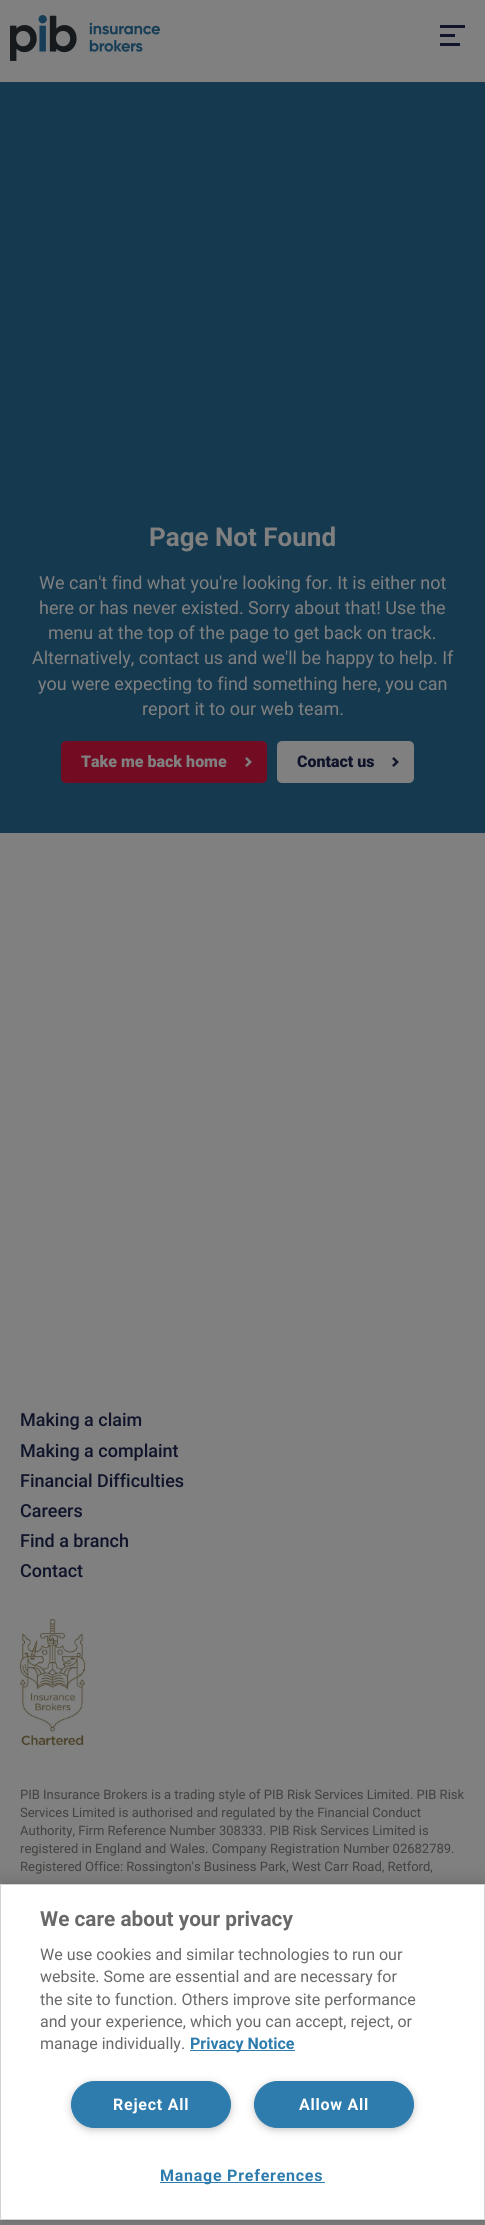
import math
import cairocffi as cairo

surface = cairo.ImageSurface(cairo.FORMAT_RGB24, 485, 2225)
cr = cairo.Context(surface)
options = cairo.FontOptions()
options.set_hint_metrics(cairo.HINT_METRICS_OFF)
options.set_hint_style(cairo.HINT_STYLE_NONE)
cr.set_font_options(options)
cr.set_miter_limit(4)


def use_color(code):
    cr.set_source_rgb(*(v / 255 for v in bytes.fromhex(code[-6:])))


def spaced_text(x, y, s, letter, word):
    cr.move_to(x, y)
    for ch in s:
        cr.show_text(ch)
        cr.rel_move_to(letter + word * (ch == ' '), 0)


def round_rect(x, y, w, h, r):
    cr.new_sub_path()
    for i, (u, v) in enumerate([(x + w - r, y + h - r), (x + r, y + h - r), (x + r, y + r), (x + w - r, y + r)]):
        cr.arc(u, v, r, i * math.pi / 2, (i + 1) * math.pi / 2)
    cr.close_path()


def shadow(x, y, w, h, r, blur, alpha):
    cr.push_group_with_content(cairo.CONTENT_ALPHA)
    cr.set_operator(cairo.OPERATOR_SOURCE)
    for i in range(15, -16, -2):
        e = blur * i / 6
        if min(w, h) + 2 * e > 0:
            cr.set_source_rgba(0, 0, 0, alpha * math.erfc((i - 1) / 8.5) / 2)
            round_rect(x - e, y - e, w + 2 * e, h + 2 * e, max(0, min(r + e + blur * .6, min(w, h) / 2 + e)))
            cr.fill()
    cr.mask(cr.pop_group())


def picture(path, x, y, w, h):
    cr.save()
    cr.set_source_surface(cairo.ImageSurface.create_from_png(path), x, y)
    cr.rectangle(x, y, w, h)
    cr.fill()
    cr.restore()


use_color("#808080")
cr.paint()
picture("img1.png", 10, 15, 150, 46)
use_color("#0f142a")
cr.rectangle(440, 34, 15, 3)
cr.fill()
cr.rectangle(440, 25, 25, 3)
cr.fill()
cr.rectangle(440, 43, 20, 3)
cr.fill()
use_color("#15394f")
cr.rectangle(0, 82, 485, 751)
cr.fill()
cr.select_font_face("Roboto", cairo.FONT_SLANT_NORMAL, cairo.FONT_WEIGHT_BOLD)
cr.set_font_size(26)
use_color("#808080")
cr.move_to(149, 546)
cr.show_text("Page Not Found")
cr.select_font_face("Roboto")
cr.set_font_size(18)
cr.move_to(39, 589)
cr.show_text("We can't find what you're looking for. It is either not")
cr.move_to(39, 614)
cr.show_text("here or has never existed. Sorry about that! Use the")
cr.move_to(48, 639)
cr.show_text("menu at the top of the page to get back on track.")
cr.move_to(32, 664)
cr.show_text("Alternatively, contact us and we'll be happy to help. If")
cr.move_to(38, 690)
cr.show_text("you were expecting to find something here, you can")
cr.move_to(142, 715)
cr.show_text("report it to our web team.")
use_color("#720c22")
round_rect(61, 741, 206, 42, 5)
cr.fill()
picture("img2.png", 245, 757, 7, 10)
cr.select_font_face("Roboto Black")
cr.set_font_size(16)
use_color("#808080")
cr.move_to(81, 767)
cr.show_text("Take me back home")
round_rect(277, 741, 137, 42, 5)
cr.fill()
picture("img3.png", 392, 757, 7, 10)
use_color("#0f142a")
cr.move_to(297, 767)
cr.show_text("Contact us")
cr.select_font_face("Roboto Medium")
cr.set_font_size(18)
cr.move_to(20, 1426)
cr.show_text("Making a claim")
cr.move_to(20, 1457)
cr.show_text("Making a complaint")
cr.move_to(20, 1487)
cr.show_text("Financial Difficulties")
cr.move_to(20, 1517)
cr.show_text("Careers")
cr.move_to(20, 1547)
cr.show_text("Find a branch")
cr.move_to(20, 1577)
cr.show_text("Contact")
picture("img4.png", 20, 1619, 65, 126)
cr.select_font_face("Roboto")
cr.set_font_size(13)
use_color("#41413f")
cr.move_to(20, 1799)
cr.show_text("PIB Insurance Brokers is a trading style of PIB Risk Services Limited. PIB Risk")
cr.move_to(20, 1817)
cr.show_text("Services Limited is authorised and regulated by the Financial Conduct")
cr.move_to(20, 1835)
cr.show_text("Authority, Firm Reference Number 308333. PIB Risk Services Limited is")
cr.move_to(20, 1853)
cr.show_text("registered in England and Wales. Company Registration Number 02682789.")
cr.move_to(20, 1871)
cr.show_text("Registered Office: Rossington's Business Park, West Carr Road, Retford,")
use_color("#000000")
shadow(0, 1884, 485, 336, 0, 9, 0.2)
use_color("#ffffff")
cr.rectangle(0.5, 1884.5, 484, 335)
cr.fill_preserve()
use_color("#d2d2d2")
cr.set_line_width(1)
cr.stroke()
cr.select_font_face("Roboto", cairo.FONT_SLANT_NORMAL, cairo.FONT_WEIGHT_BOLD)
cr.set_font_size(20.75)
use_color("#696969")
cr.move_to(40, 1926)
cr.show_text("We care about your privacy")
cr.select_font_face("Roboto")
cr.set_font_size(16)
cr.move_to(40, 1960)
cr.show_text("We use cookies and similar technologies to run our")
cr.move_to(40, 1982)
cr.show_text("website. Some are essential and are necessary for")
cr.move_to(40, 2005)
cr.show_text("the site to function. Others improve site performance")
cr.move_to(40, 2027)
cr.show_text("and your experience, which you can accept, reject, or")
cr.move_to(40, 2049)
cr.show_text("manage individually.")
use_color("#2e7cad")
cr.rectangle(190, 2050, 105, 1)
cr.fill()
cr.select_font_face("Roboto", cairo.FONT_SLANT_NORMAL, cairo.FONT_WEIGHT_BOLD)
cr.move_to(190, 2049)
cr.show_text("Privacy Notice")
use_color("#999999")
shadow(74, 2086, 154, 41, 20.5, 5, 1)
use_color("#2e7cad")
round_rect(71.5, 2081.5, 159, 46, 23)
cr.fill_preserve()
cr.stroke()
use_color("#ffffff")
spaced_text(113, 2110, "Reject All", 0.75, 0)
use_color("#999999")
shadow(257, 2086, 154, 41, 20.5, 5, 1)
use_color("#2e7cad")
round_rect(254.5, 2081.5, 159, 46, 23)
cr.fill_preserve()
cr.stroke()
use_color("#ffffff")
spaced_text(299, 2110, "Allow All", 0.75, 0)
use_color("#2e7cad")
cr.rectangle(160, 2182, 165, 1)
cr.fill()
spaced_text(160, 2181, "Manage Preferences", 0.75, 0)
surface.write_to_png("result.png")
